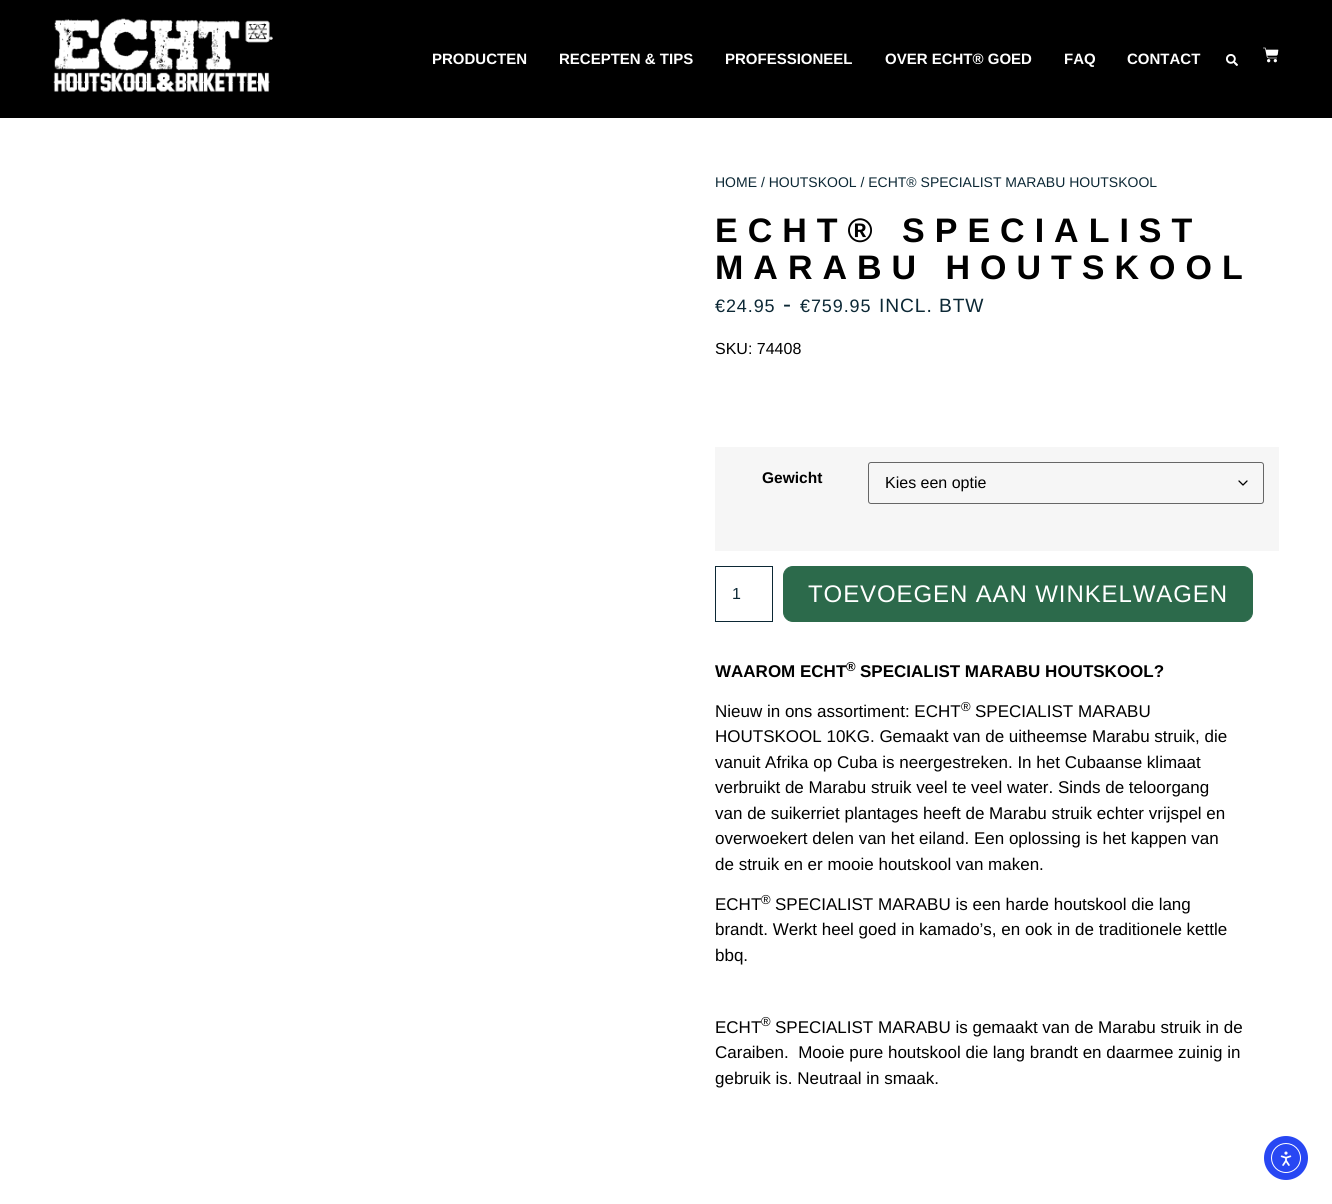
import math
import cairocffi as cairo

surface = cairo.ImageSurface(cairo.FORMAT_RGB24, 1332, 1204)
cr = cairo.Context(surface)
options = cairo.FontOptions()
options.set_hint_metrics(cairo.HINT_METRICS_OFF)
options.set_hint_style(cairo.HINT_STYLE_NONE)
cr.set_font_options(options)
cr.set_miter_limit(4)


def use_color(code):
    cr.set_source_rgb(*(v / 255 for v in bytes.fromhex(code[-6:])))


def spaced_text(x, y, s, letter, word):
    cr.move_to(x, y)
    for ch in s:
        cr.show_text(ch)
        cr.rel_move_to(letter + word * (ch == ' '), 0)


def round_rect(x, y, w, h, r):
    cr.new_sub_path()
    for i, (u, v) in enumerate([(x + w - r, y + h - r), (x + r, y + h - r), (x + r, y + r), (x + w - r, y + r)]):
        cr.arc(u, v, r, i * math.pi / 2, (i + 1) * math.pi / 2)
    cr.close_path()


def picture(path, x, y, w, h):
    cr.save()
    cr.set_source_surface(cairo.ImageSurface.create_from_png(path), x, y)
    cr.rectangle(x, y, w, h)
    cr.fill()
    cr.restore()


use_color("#ffffff")
cr.paint()
use_color("#000000")
cr.rectangle(0, 0, 1332, 118)
cr.fill()
picture("img1.png", 53, 18, 220, 74)
cr.select_font_face("Liberation Sans", cairo.FONT_SLANT_NORMAL, cairo.FONT_WEIGHT_BOLD)
cr.set_font_size(15)
use_color("#ffffff")
cr.move_to(432, 64)
cr.show_text("PRODUCTEN")
cr.move_to(559, 64)
cr.show_text("RECEPTEN & TIPS")
cr.move_to(725, 64)
cr.show_text("PROFESSIONEEL")
cr.move_to(885, 64)
cr.show_text("OVER ECHT® GOED")
cr.move_to(1064, 64)
cr.show_text("FAQ")
cr.move_to(1127, 64)
cr.show_text("CONTACT")
picture("img2.png", 1226, 54, 12, 12)
picture("img3.png", 1263, 47, 16, 16)
cr.select_font_face("Liberation Sans")
cr.set_font_size(14)
use_color("#0c2835")
cr.move_to(715, 187)
cr.show_text("HOME / HOUTSKOOL / ECHT® SPECIALIST MARABU HOUTSKOOL")
cr.select_font_face("Liberation Sans", cairo.FONT_SLANT_NORMAL, cairo.FONT_WEIGHT_BOLD)
cr.set_font_size(34)
use_color("#000000")
spaced_text(715, 242, "ECHT® SPECIALIST", 10, 0)
spaced_text(715, 279, "MARABU HOUTSKOOL", 10, 0)
cr.select_font_face("Liberation Sans")
cr.set_font_size(18)
use_color("#0c2835")
spaced_text(715, 312, "€24.95", 0.9, 0)
cr.set_font_size(24)
spaced_text(783, 312, "-", 0.9, 0)
cr.set_font_size(18)
spaced_text(800, 312, "€759.95", 0.9, 0)
cr.set_font_size(19.25)
spaced_text(879, 312, "INCL. BTW", 0.9, 0)
cr.set_font_size(16)
use_color("#000000")
cr.move_to(715, 354)
cr.show_text("SKU: 74408")
use_color("#f6f6f6")
cr.rectangle(715, 447, 564, 104)
cr.fill()
cr.select_font_face("Liberation Sans", cairo.FONT_SLANT_NORMAL, cairo.FONT_WEIGHT_BOLD)
cr.set_font_size(15.5)
use_color("#000000")
cr.move_to(762, 483)
cr.show_text("Gewicht")
cr.new_path()
cr.move_to(1239, 481)
cr.line_to(1243, 485)
cr.line_to(1247, 481)
cr.set_line_width(1.3)
cr.set_line_cap(cairo.LINE_CAP_ROUND)
cr.set_line_join(cairo.LINE_JOIN_ROUND)
cr.stroke()
round_rect(868.5, 462.5, 395, 41, 2.5)
use_color("#666666")
cr.set_line_width(1)
cr.set_line_cap(cairo.LINE_CAP_BUTT)
cr.set_line_join(cairo.LINE_JOIN_MITER)
cr.stroke()
cr.select_font_face("Liberation Sans")
cr.set_font_size(16)
use_color("#000000")
cr.move_to(885, 488)
cr.show_text("Kies een optie")
cr.rectangle(715.5, 566.5, 57, 55)
use_color("#0c2835")
cr.stroke()
cr.move_to(732, 599)
cr.show_text("1")
use_color("#2c6a4b")
round_rect(783.5, 566.5, 469, 55, 9.5)
cr.fill_preserve()
cr.stroke()
cr.set_font_size(24)
use_color("#ffffff")
spaced_text(808, 602, "TOEVOEGEN AAN WINKELWAGEN", 0.9, 0)
cr.select_font_face("Liberation Sans", cairo.FONT_SLANT_NORMAL, cairo.FONT_WEIGHT_BOLD)
cr.set_font_size(17)
use_color("#000000")
cr.move_to(715, 677)
cr.show_text("WAAROM ECHT")
cr.set_font_size(13)
cr.move_to(846, 671)
cr.show_text("®")
cr.set_font_size(17)
cr.move_to(860, 677)
cr.show_text("SPECIALIST MARABU HOUTSKOOL?")
cr.select_font_face("Liberation Sans")
cr.move_to(715, 717)
cr.show_text("Nieuw in ons assortiment: ECHT")
cr.set_font_size(13)
cr.move_to(961, 711)
cr.show_text("®")
cr.set_font_size(17)
cr.move_to(975, 717)
cr.show_text("SPECIALIST MARABU")
cr.move_to(715, 742)
cr.show_text("HOUTSKOOL 10KG. Gemaakt van de uitheemse Marabu struik, die")
cr.move_to(715, 768)
cr.show_text("vanuit Afrika op Cuba is neergestreken. In het Cubaanse klimaat")
cr.move_to(715, 793)
cr.show_text("verbruikt de Marabu struik veel te veel water. Sinds de teloorgang")
cr.move_to(715, 819)
cr.show_text("van de suikerriet plantages heeft de Marabu struik echter vrijspel en")
cr.move_to(715, 844)
cr.show_text("overwoekert delen van het eiland. Een oplossing is het kappen van")
cr.move_to(715, 870)
cr.show_text("de struik en er mooie houtskool van maken.")
cr.move_to(715, 910)
cr.show_text("ECHT")
cr.set_font_size(13)
cr.move_to(761, 904)
cr.show_text("®")
cr.set_font_size(17)
cr.move_to(775, 910)
cr.show_text("SPECIALIST MARABU is een harde houtskool die lang")
cr.move_to(715, 935)
cr.show_text("brandt. Werkt heel goed in kamado’s, en ook in de traditionele kettle")
cr.move_to(715, 961)
cr.show_text("bbq.")
cr.move_to(715, 1033)
cr.show_text("ECHT")
cr.set_font_size(13)
cr.move_to(761, 1026)
cr.show_text("®")
cr.set_font_size(17)
cr.move_to(775, 1033)
cr.show_text("SPECIALIST MARABU is gemaakt van de Marabu struik in de")
cr.move_to(715, 1058)
cr.show_text("Caraiben.  Mooie pure houtskool die lang brandt en daarmee zuinig in")
cr.move_to(715, 1084)
cr.show_text("gebruik is. Neutraal in smaak.")
use_color("#2847f3")
cr.new_path()
cr.arc(1286, 1158, 22, 0, 2 * math.pi)
cr.fill()
cr.arc(1286, 1158, 14.5, 0, 2 * math.pi)
use_color("#ffffff")
cr.stroke()
picture("img4.png", 1280, 1151, 12, 15)
surface.write_to_png("result.png")
